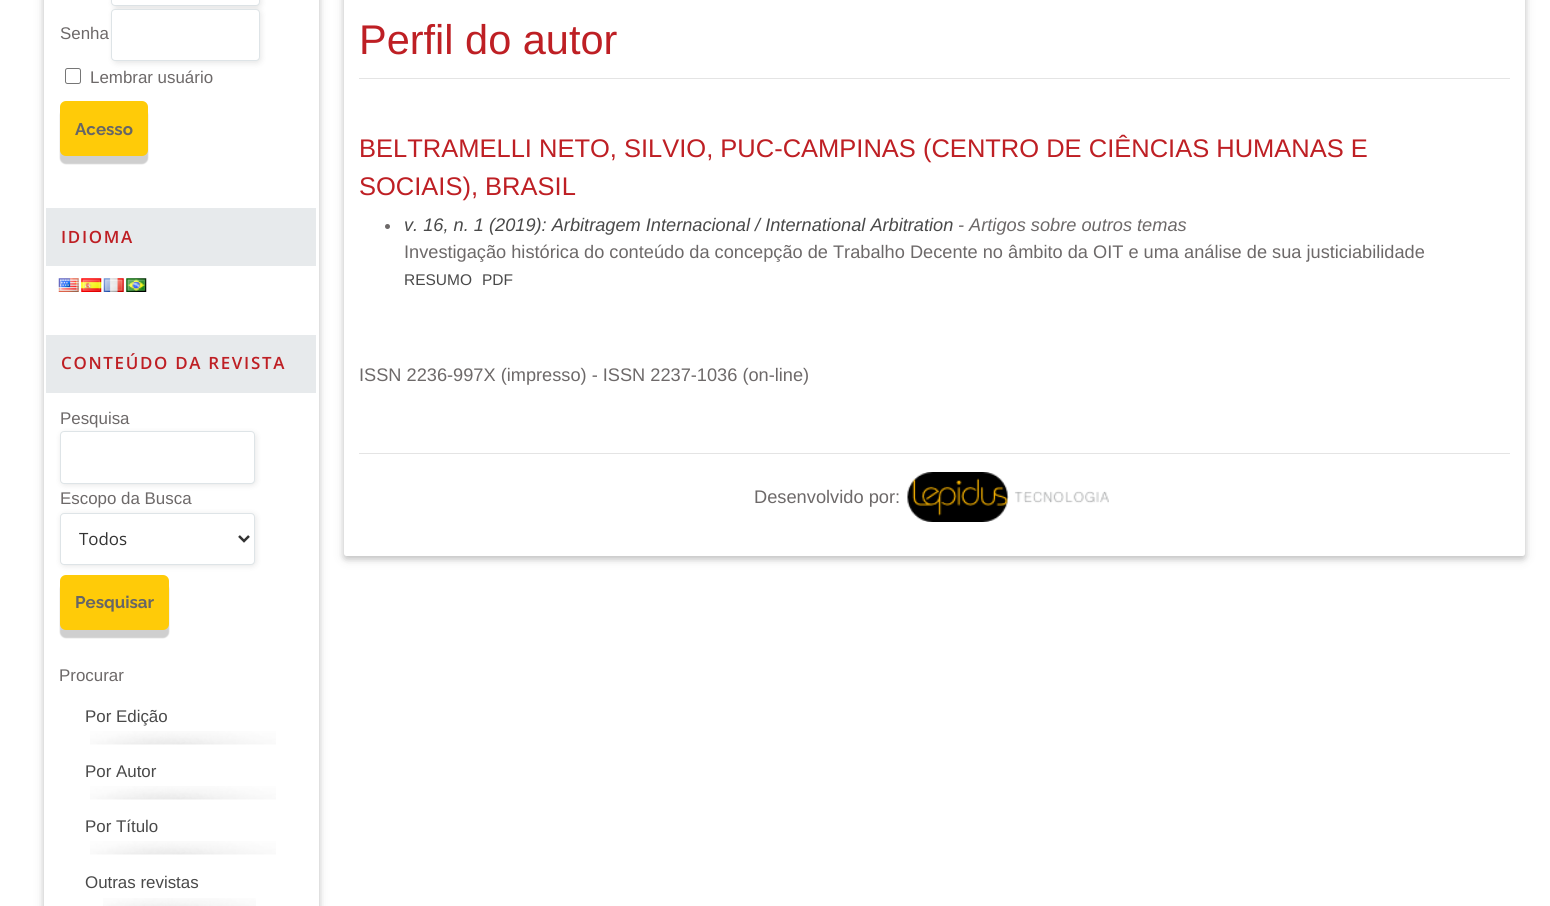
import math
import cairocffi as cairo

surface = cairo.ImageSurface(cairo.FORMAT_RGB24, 1550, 906)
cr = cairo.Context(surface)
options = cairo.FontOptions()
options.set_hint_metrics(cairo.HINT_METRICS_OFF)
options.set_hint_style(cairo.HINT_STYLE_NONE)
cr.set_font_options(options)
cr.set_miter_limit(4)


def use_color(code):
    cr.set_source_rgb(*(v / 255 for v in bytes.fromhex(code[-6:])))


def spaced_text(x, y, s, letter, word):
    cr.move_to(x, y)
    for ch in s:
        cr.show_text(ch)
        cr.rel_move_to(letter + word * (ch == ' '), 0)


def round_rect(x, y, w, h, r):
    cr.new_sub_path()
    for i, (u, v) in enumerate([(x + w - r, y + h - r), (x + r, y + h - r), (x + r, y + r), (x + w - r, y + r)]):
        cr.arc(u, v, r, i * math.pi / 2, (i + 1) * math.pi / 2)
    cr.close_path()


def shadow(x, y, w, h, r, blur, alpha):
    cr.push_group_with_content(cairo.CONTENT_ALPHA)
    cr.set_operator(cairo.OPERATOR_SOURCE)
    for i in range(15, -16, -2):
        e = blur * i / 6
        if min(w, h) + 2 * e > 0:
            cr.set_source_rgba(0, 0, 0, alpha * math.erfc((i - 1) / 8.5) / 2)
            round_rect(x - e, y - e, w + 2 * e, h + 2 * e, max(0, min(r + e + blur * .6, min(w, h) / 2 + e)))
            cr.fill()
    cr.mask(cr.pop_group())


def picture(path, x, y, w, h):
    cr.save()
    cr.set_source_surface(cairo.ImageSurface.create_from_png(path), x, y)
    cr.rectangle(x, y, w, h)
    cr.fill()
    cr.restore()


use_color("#ffffff")
cr.paint()
use_color("#000000")
shadow(44, -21, 275, 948, 2.5, 6, 0.12)
shadow(44, -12, 275, 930, 2.5, 3, 0.16)
use_color("#ffffff")
cr.rectangle(44, 0, 275, 906)
cr.fill()
use_color("#000000")
shadow(113, -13, 148, 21, 4, 3, 0.1)
use_color("#ffffff")
round_rect(111.5, -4.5, 148, 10, 3.5)
cr.fill_preserve()
use_color("#dee4e7")
cr.set_line_width(1)
cr.stroke()
use_color("#000000")
shadow(113, 10, 148, 53, 4, 3, 0.1)
cr.select_font_face("Liberation Sans")
cr.set_font_size(16.9)
use_color("#6d6969")
cr.move_to(60, 39)
cr.show_text("Senha")
use_color("#ffffff")
round_rect(111.5, 9.5, 148, 51, 3.5)
cr.fill_preserve()
use_color("#dee4e7")
cr.stroke()
round_rect(65.5, 68.5, 15, 15, 2)
use_color("#767676")
cr.stroke()
use_color("#6d6969")
cr.move_to(90, 83)
cr.show_text("Lembrar usuário")
use_color("#cfcfcf")
shadow(60, 109, 88, 55, 6, 0.5, 1)
use_color("#ffcb08")
round_rect(60, 101, 88, 55, 6)
cr.fill()
cr.select_font_face("Raleway", cairo.FONT_SLANT_NORMAL, cairo.FONT_WEIGHT_BOLD)
use_color("#666666")
cr.move_to(75, 135)
cr.show_text("Acesso")
use_color("#e7eaec")
cr.rectangle(46, 208, 270, 58)
cr.fill()
cr.select_font_face("Open Sans SemiBold")
use_color("#be1f24")
spaced_text(61, 243, "IDIOMA", 1.7, 0)
picture("img1.png", 58, 278, 21, 14)
picture("img2.png", 81, 278, 21, 14)
picture("img3.png", 103, 278, 21, 14)
picture("img4.png", 126, 278, 21, 14)
use_color("#e7eaec")
cr.rectangle(46, 335, 270, 58)
cr.fill()
use_color("#be1f24")
spaced_text(61, 369, "CONTEÚDO DA REVISTA", 1.7, 0)
use_color("#000000")
shadow(61, 433, 195, 52, 4, 3, 0.1)
cr.select_font_face("Liberation Sans")
use_color("#6d6969")
cr.move_to(60, 424)
cr.show_text("Pesquisa")
use_color("#ffffff")
round_rect(60.5, 431.5, 194, 52, 3.5)
cr.fill_preserve()
use_color("#dee4e7")
cr.stroke()
use_color("#000000")
shadow(61, 514, 195, 52, 4, 3, 0.1)
use_color("#6d6969")
cr.move_to(60, 504)
cr.show_text("Escopo da Busca")
use_color("#ffffff")
round_rect(60.5, 513.5, 194, 51, 3.5)
cr.fill_preserve()
use_color("#dee4e7")
cr.stroke()
cr.new_path()
cr.move_to(239, 536)
cr.line_to(244, 541)
cr.line_to(249, 536)
use_color("#333333")
cr.set_line_width(2.5)
cr.stroke()
cr.select_font_face("Open Sans")
cr.move_to(79, 545)
cr.show_text("Todos")
use_color("#cfcfcf")
shadow(60, 583, 109, 55, 6, 0.5, 1)
use_color("#ffcb08")
round_rect(60, 575, 109, 55, 6)
cr.fill()
cr.select_font_face("Raleway", cairo.FONT_SLANT_NORMAL, cairo.FONT_WEIGHT_BOLD)
use_color("#666666")
cr.move_to(75, 608)
cr.show_text("Pesquisar")
cr.select_font_face("Liberation Sans")
use_color("#6d6969")
cr.move_to(59, 681)
cr.show_text("Procurar")
picture("img5.png", 90, 731, 186, 14)
use_color("#494949")
cr.move_to(85, 722)
cr.show_text("Por Edição")
picture("img5.png", 90, 786, 186, 14)
cr.move_to(85, 777)
cr.show_text("Por Autor")
picture("img5.png", 90, 841, 186, 14)
cr.move_to(85, 832)
cr.show_text("Por Título")
picture("img6.png", 103, 898, 153, 8)
cr.move_to(85, 888)
cr.show_text("Outras revistas")
use_color("#000000")
shadow(344, -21, 1181, 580, 2.5, 6, 0.12)
shadow(344, -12, 1181, 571, 2.5, 3, 0.16)
use_color("#ffffff")
round_rect(344, -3, 1181, 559, 2.5)
cr.fill()
use_color("#e4e4e4")
cr.rectangle(359, 78, 1151, 1)
cr.fill()
cr.set_font_size(41.5)
use_color("#be1f24")
cr.move_to(359, 54)
cr.show_text("Perfil do autor")
cr.set_font_size(25.5)
cr.move_to(359, 157)
cr.show_text("BELTRAMELLI NETO, SILVIO, PUC-CAMPINAS (CENTRO DE CIÊNCIAS HUMANAS E")
cr.move_to(359, 195)
cr.show_text("SOCIAIS), BRASIL")
use_color("#6d6969")
cr.new_path()
cr.arc(387.5, 226.5, 2.5, 0, 2 * math.pi)
cr.fill()
cr.select_font_face("Liberation Sans", cairo.FONT_SLANT_ITALIC)
cr.set_font_size(18.2)
use_color("#494949")
cr.move_to(404, 231)
cr.show_text("v. 16, n. 1 (2019): Arbitragem Internacional / International Arbitration")
use_color("#6d6969")
cr.move_to(958, 231)
cr.show_text("- Artigos sobre outros temas")
cr.select_font_face("Liberation Sans")
cr.move_to(404, 258)
cr.show_text("Investigação histórica do conteúdo da concepção de Trabalho Decente no âmbito da OIT e uma análise de sua justiciabilidade")
cr.set_font_size(15.5)
use_color("#494949")
cr.move_to(404, 285)
cr.show_text("RESUMO")
cr.move_to(482, 285)
cr.show_text("PDF")
cr.set_font_size(18.2)
use_color("#6d6969")
cr.move_to(359, 381)
cr.show_text("ISSN 2236-997X (impresso) - ISSN 2237-1036 (on-line)")
use_color("#e4e4e4")
cr.rectangle(359, 453, 1151, 1)
cr.fill()
cr.set_font_size(18.25)
use_color("#6d6969")
cr.move_to(754, 503)
cr.show_text("Desenvolvido por:")
picture("img7.png", 907, 472, 202, 50)
surface.write_to_png("result.png")
